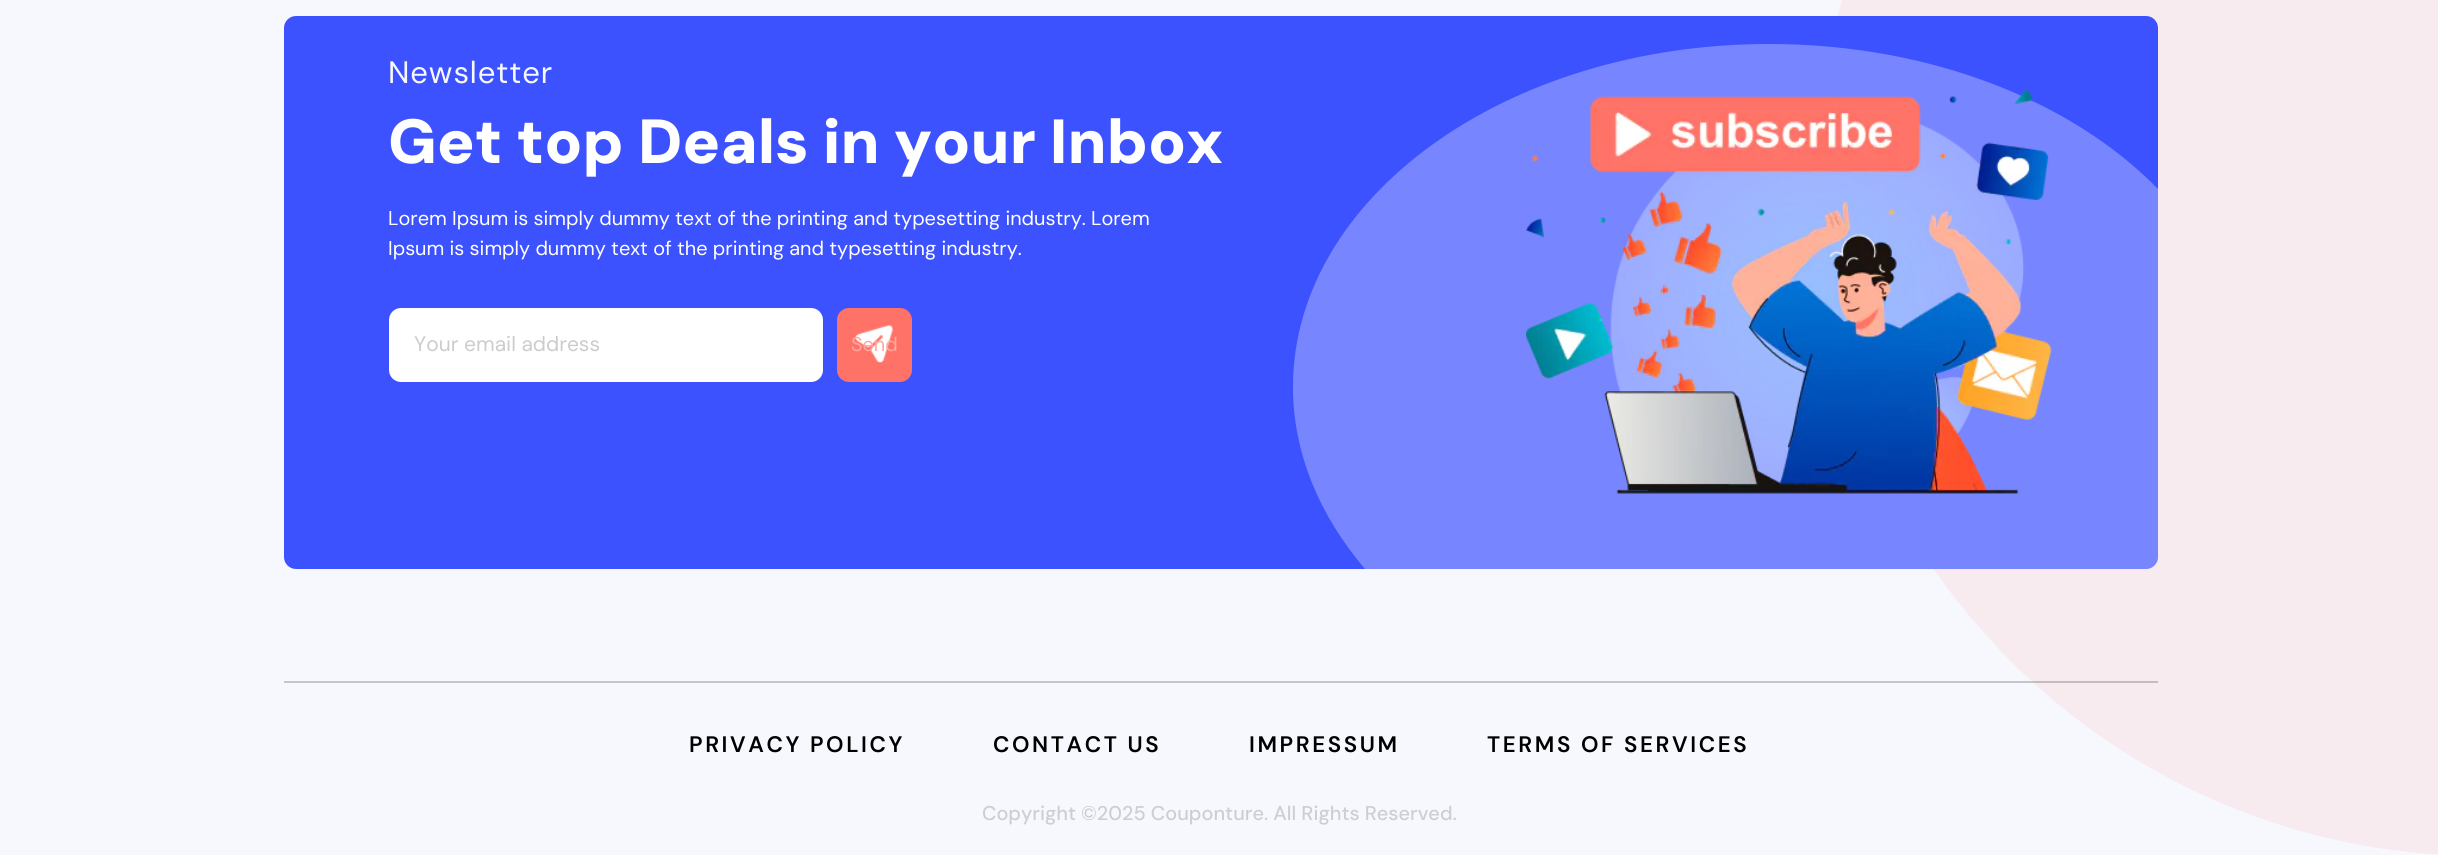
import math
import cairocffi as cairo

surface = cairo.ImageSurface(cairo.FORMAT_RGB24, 2438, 855)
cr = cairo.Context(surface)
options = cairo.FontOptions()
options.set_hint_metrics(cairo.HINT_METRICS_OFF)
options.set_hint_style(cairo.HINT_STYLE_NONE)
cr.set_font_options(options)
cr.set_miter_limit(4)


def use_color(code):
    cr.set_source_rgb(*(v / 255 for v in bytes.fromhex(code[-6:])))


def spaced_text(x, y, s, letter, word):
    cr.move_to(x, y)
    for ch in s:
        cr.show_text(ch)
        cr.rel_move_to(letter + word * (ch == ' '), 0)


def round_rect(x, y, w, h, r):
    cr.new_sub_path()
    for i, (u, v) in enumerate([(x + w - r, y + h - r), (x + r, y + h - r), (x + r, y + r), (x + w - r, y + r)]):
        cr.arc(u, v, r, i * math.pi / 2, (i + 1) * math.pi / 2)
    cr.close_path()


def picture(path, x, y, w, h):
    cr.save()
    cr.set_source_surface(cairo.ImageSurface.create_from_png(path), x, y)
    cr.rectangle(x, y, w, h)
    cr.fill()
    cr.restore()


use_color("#f6f8fe")
cr.paint()
use_color("#f8ebf0")
cr.new_path()
cr.move_to(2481.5, -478)
cr.line_to(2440, -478)
cr.line_to(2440, 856)
cr.line_to(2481.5, 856)
cr.curve_to(2113.5, 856, 1815, 557.5, 1815, 189.5)
cr.line_to(1815, 188.5)
cr.curve_to(1815, -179.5, 2113.5, -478, 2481.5, -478)
cr.close_path()
cr.fill()
use_color("#3d52ff")
round_rect(284, 16, 1874, 553, 12)
cr.fill()
cr.select_font_face("DM Sans")
cr.set_font_size(31)
use_color("#f6f8fe")
spaced_text(388, 83, "Newsletter", 0.9, 0)
cr.select_font_face("DM Sans Black")
cr.set_font_size(62.25)
use_color("#ffffff")
cr.move_to(388, 163)
cr.show_text("Get top Deals in your Inbox")
cr.select_font_face("DM Sans")
cr.set_font_size(19.9)
cr.move_to(388, 225)
cr.show_text("Lorem Ipsum is simply dummy text of the printing and typesetting industry. Lorem")
cr.move_to(388, 255)
cr.show_text("Ipsum is simply dummy text of the printing and typesetting industry.")
round_rect(389, 308, 434, 74, 12)
cr.fill()
cr.set_font_size(21)
use_color("#cccccc")
cr.move_to(414, 351)
cr.show_text("Your email address")
use_color("#ff7267")
round_rect(837, 308, 75, 74, 12)
cr.fill()
picture("img1.png", 855, 325, 38, 38)
cr.set_font_size(19.9)
use_color("#ffa7a0")
cr.move_to(851, 351)
cr.show_text("Send")
cr.set_source_rgba(1, 1, 1, 0.3)
cr.new_path()
cr.move_to(1769, 44)
cr.curve_to(1930, 44, 2072, 101, 2158, 189)
cr.line_to(2158, 557)
cr.curve_to(2158, 564, 2153, 569, 2146, 569)
cr.line_to(1365, 569)
cr.curve_to(1320, 516, 1293, 454, 1293, 387)
cr.curve_to(1293, 198, 1506, 44, 1769, 44)
cr.close_path()
cr.fill()
picture("img2.png", 1526, 89, 526, 405)
cr.set_source_rgba(0, 0, 0, 0.2)
cr.rectangle(284, 681, 1874, 2)
cr.fill()
cr.select_font_face("DM Sans SemiBold")
cr.set_font_size(22.4)
use_color("#000000")
spaced_text(689, 752, "PRIVACY POLICY", 2.6, 0)
spaced_text(993, 752, "CONTACT US", 2.6, 0)
spaced_text(1249, 752, "IMPRESSUM", 2.6, 0)
spaced_text(1487, 752, "TERMS OF SERVICES", 2.6, 0)
cr.select_font_face("DM Sans Medium")
cr.set_font_size(19.9)
use_color("#cbced3")
cr.move_to(982, 820)
cr.show_text("Copyright ©2025 Couponture. All Rights Reserved.")
surface.write_to_png("result.png")
